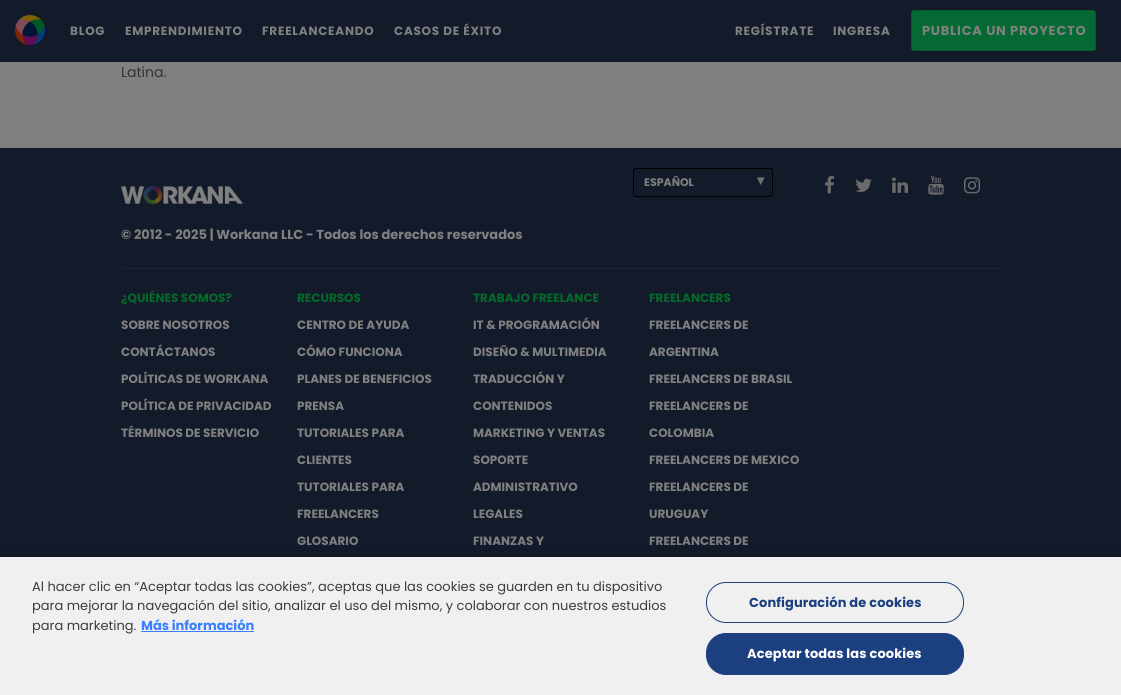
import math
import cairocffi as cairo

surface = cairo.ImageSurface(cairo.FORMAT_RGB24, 1121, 695)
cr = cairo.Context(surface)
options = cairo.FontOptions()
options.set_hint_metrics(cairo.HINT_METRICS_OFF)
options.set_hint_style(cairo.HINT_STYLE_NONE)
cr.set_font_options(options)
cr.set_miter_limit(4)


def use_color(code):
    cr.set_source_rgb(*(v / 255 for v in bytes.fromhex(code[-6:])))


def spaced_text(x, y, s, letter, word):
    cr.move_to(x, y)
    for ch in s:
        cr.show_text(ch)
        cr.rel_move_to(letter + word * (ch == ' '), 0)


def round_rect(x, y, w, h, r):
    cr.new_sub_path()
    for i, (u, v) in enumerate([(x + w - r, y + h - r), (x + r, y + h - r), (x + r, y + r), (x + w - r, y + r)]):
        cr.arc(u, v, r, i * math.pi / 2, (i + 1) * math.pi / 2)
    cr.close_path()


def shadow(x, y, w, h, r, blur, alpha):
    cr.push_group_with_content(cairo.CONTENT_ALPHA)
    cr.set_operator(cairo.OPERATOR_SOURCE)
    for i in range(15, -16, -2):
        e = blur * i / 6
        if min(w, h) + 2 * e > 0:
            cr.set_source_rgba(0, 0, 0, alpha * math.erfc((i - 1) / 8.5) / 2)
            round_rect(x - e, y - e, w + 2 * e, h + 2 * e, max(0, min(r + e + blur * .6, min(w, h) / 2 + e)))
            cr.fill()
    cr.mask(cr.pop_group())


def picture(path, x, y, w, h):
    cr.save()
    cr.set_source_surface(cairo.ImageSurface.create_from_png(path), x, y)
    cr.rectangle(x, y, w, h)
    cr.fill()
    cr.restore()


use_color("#808080")
cr.paint()
use_color("#131b2b")
cr.rectangle(0, 0, 1121, 62)
cr.fill()
picture("img1.png", 15, 15, 30, 30)
cr.select_font_face("Poppins", cairo.FONT_SLANT_NORMAL, cairo.FONT_WEIGHT_BOLD)
cr.set_font_size(12)
use_color("#808080")
spaced_text(70, 35, "BLOG", 0.75, 0)
spaced_text(125, 35, "EMPRENDIMIENTO", 0.75, 0)
spaced_text(262, 35, "FREELANCEANDO", 0.75, 0)
spaced_text(394, 35, "CASOS DE ÉXITO", 0.75, 0)
spaced_text(735, 35, "REGÍSTRATE", 0.75, 0)
spaced_text(833, 35, "INGRESA", 0.75, 0)
use_color("#056933")
round_rect(911.5, 10.5, 184, 40, 2.5)
cr.fill_preserve()
use_color("#055d25")
cr.set_line_width(1)
cr.stroke()
cr.set_font_size(13)
use_color("#808080")
spaced_text(922, 35, "PUBLICA UN PROYECTO", 0.75, 0)
cr.select_font_face("Poppins")
cr.set_font_size(14)
use_color("#333333")
cr.move_to(121, 77)
cr.show_text("Latina.")
use_color("#131b2b")
cr.rectangle(0, 148, 1121, 409)
cr.fill()
round_rect(633.5, 168.5, 139, 28, 2.5)
use_color("#000000")
cr.stroke()
cr.select_font_face("Poppins", cairo.FONT_SLANT_NORMAL, cairo.FONT_WEIGHT_BOLD)
cr.set_font_size(11)
use_color("#808080")
cr.move_to(644, 186)
cr.show_text("ESPAÑOL")
cr.select_font_face("DejaVu Sans", cairo.FONT_SLANT_NORMAL, cairo.FONT_WEIGHT_BOLD)
cr.set_font_size(14)
use_color("#707173")
cr.move_to(757, 185)
cr.show_text("▾")
picture("img2.png", 825, 175, 9, 19)
picture("img3.png", 855, 178, 17, 14)
picture("img4.png", 892, 177, 17, 16)
picture("img5.png", 928, 175, 16, 20)
picture("img6.png", 964, 177, 17, 17)
picture("img7.png", 121, 186, 122, 18)
cr.select_font_face("Poppins", cairo.FONT_SLANT_NORMAL, cairo.FONT_WEIGHT_BOLD)
cr.set_font_size(13)
use_color("#808080")
cr.move_to(121, 239)
cr.show_text("© 2012 - 2025 | Workana LLC - Todos los derechos reservados")
use_color("#1e2534")
cr.rectangle(121, 268, 880, 1)
cr.fill()
cr.set_font_size(12)
use_color("#05692a")
cr.move_to(121, 302)
cr.show_text("¿QUIÉNES SOMOS?")
use_color("#808080")
cr.move_to(121, 329)
cr.show_text("SOBRE NOSOTROS")
cr.move_to(121, 356)
cr.show_text("CONTÁCTANOS")
cr.move_to(121, 383)
cr.show_text("POLÍTICAS DE WORKANA")
cr.move_to(121, 410)
cr.show_text("POLÍTICA DE PRIVACIDAD")
cr.move_to(121, 437)
cr.show_text("TÉRMINOS DE SERVICIO")
use_color("#05692a")
cr.move_to(297, 302)
cr.show_text("RECURSOS")
use_color("#808080")
cr.move_to(297, 329)
cr.show_text("CENTRO DE AYUDA")
cr.move_to(297, 356)
cr.show_text("CÓMO FUNCIONA")
cr.move_to(297, 383)
cr.show_text("PLANES DE BENEFICIOS")
cr.move_to(297, 410)
cr.show_text("PRENSA")
cr.move_to(297, 437)
cr.show_text("TUTORIALES PARA")
cr.move_to(297, 464)
cr.show_text("CLIENTES")
cr.move_to(297, 491)
cr.show_text("TUTORIALES PARA")
cr.move_to(297, 518)
cr.show_text("FREELANCERS")
cr.move_to(297, 545)
cr.show_text("GLOSARIO")
use_color("#05692a")
cr.move_to(473, 302)
cr.show_text("TRABAJO FREELANCE")
use_color("#808080")
cr.move_to(473, 329)
cr.show_text("IT & PROGRAMACIÓN")
cr.move_to(473, 356)
cr.show_text("DISEÑO & MULTIMEDIA")
cr.move_to(473, 383)
cr.show_text("TRADUCCIÓN Y")
cr.move_to(473, 410)
cr.show_text("CONTENIDOS")
cr.move_to(473, 437)
cr.show_text("MARKETING Y VENTAS")
cr.move_to(473, 464)
cr.show_text("SOPORTE")
cr.move_to(473, 491)
cr.show_text("ADMINISTRATIVO")
cr.move_to(473, 518)
cr.show_text("LEGALES")
cr.move_to(473, 545)
cr.show_text("FINANZAS Y")
use_color("#05692a")
cr.move_to(649, 302)
cr.show_text("FREELANCERS")
use_color("#808080")
cr.move_to(649, 329)
cr.show_text("FREELANCERS DE")
cr.move_to(649, 356)
cr.show_text("ARGENTINA")
cr.move_to(649, 383)
cr.show_text("FREELANCERS DE BRASIL")
cr.move_to(649, 410)
cr.show_text("FREELANCERS DE")
cr.move_to(649, 437)
cr.show_text("COLOMBIA")
cr.move_to(649, 464)
cr.show_text("FREELANCERS DE MEXICO")
cr.move_to(649, 491)
cr.show_text("FREELANCERS DE")
cr.move_to(649, 518)
cr.show_text("URUGUAY")
cr.move_to(649, 545)
cr.show_text("FREELANCERS DE")
use_color("#000000")
shadow(0, 557, 1121, 138, 0, 9, 0.2)
use_color("#f0f0f0")
cr.rectangle(0, 557, 1121, 138)
cr.fill()
cr.select_font_face("Poppins")
cr.set_font_size(13)
use_color("#3c3c3c")
cr.move_to(32, 591)
cr.show_text("Al hacer clic en “Aceptar todas las cookies”, aceptas que las cookies se guarden en tu dispositivo")
cr.move_to(32, 610)
cr.show_text("para mejorar la navegación del sitio, analizar el uso del mismo, y colaborar con nuestros estudios")
cr.move_to(32, 630)
cr.show_text("para marketing.")
cr.select_font_face("Poppins", cairo.FONT_SLANT_NORMAL, cairo.FONT_WEIGHT_BOLD)
use_color("#3a7fff")
cr.move_to(141, 630)
cr.show_text("Más información")
cr.rectangle(141, 631, 113, 1)
cr.fill()
round_rect(706.5, 582.5, 257, 40, 19.5)
use_color("#1c3f7f")
cr.stroke()
spaced_text(749, 607, "Configuración de cookies", 0.1, 0)
round_rect(706.5, 633.5, 257, 41, 19.5)
cr.fill_preserve()
cr.stroke()
use_color("#ffffff")
spaced_text(747, 658, "Aceptar todas las cookies", 0.1, 0)
surface.write_to_png("result.png")
